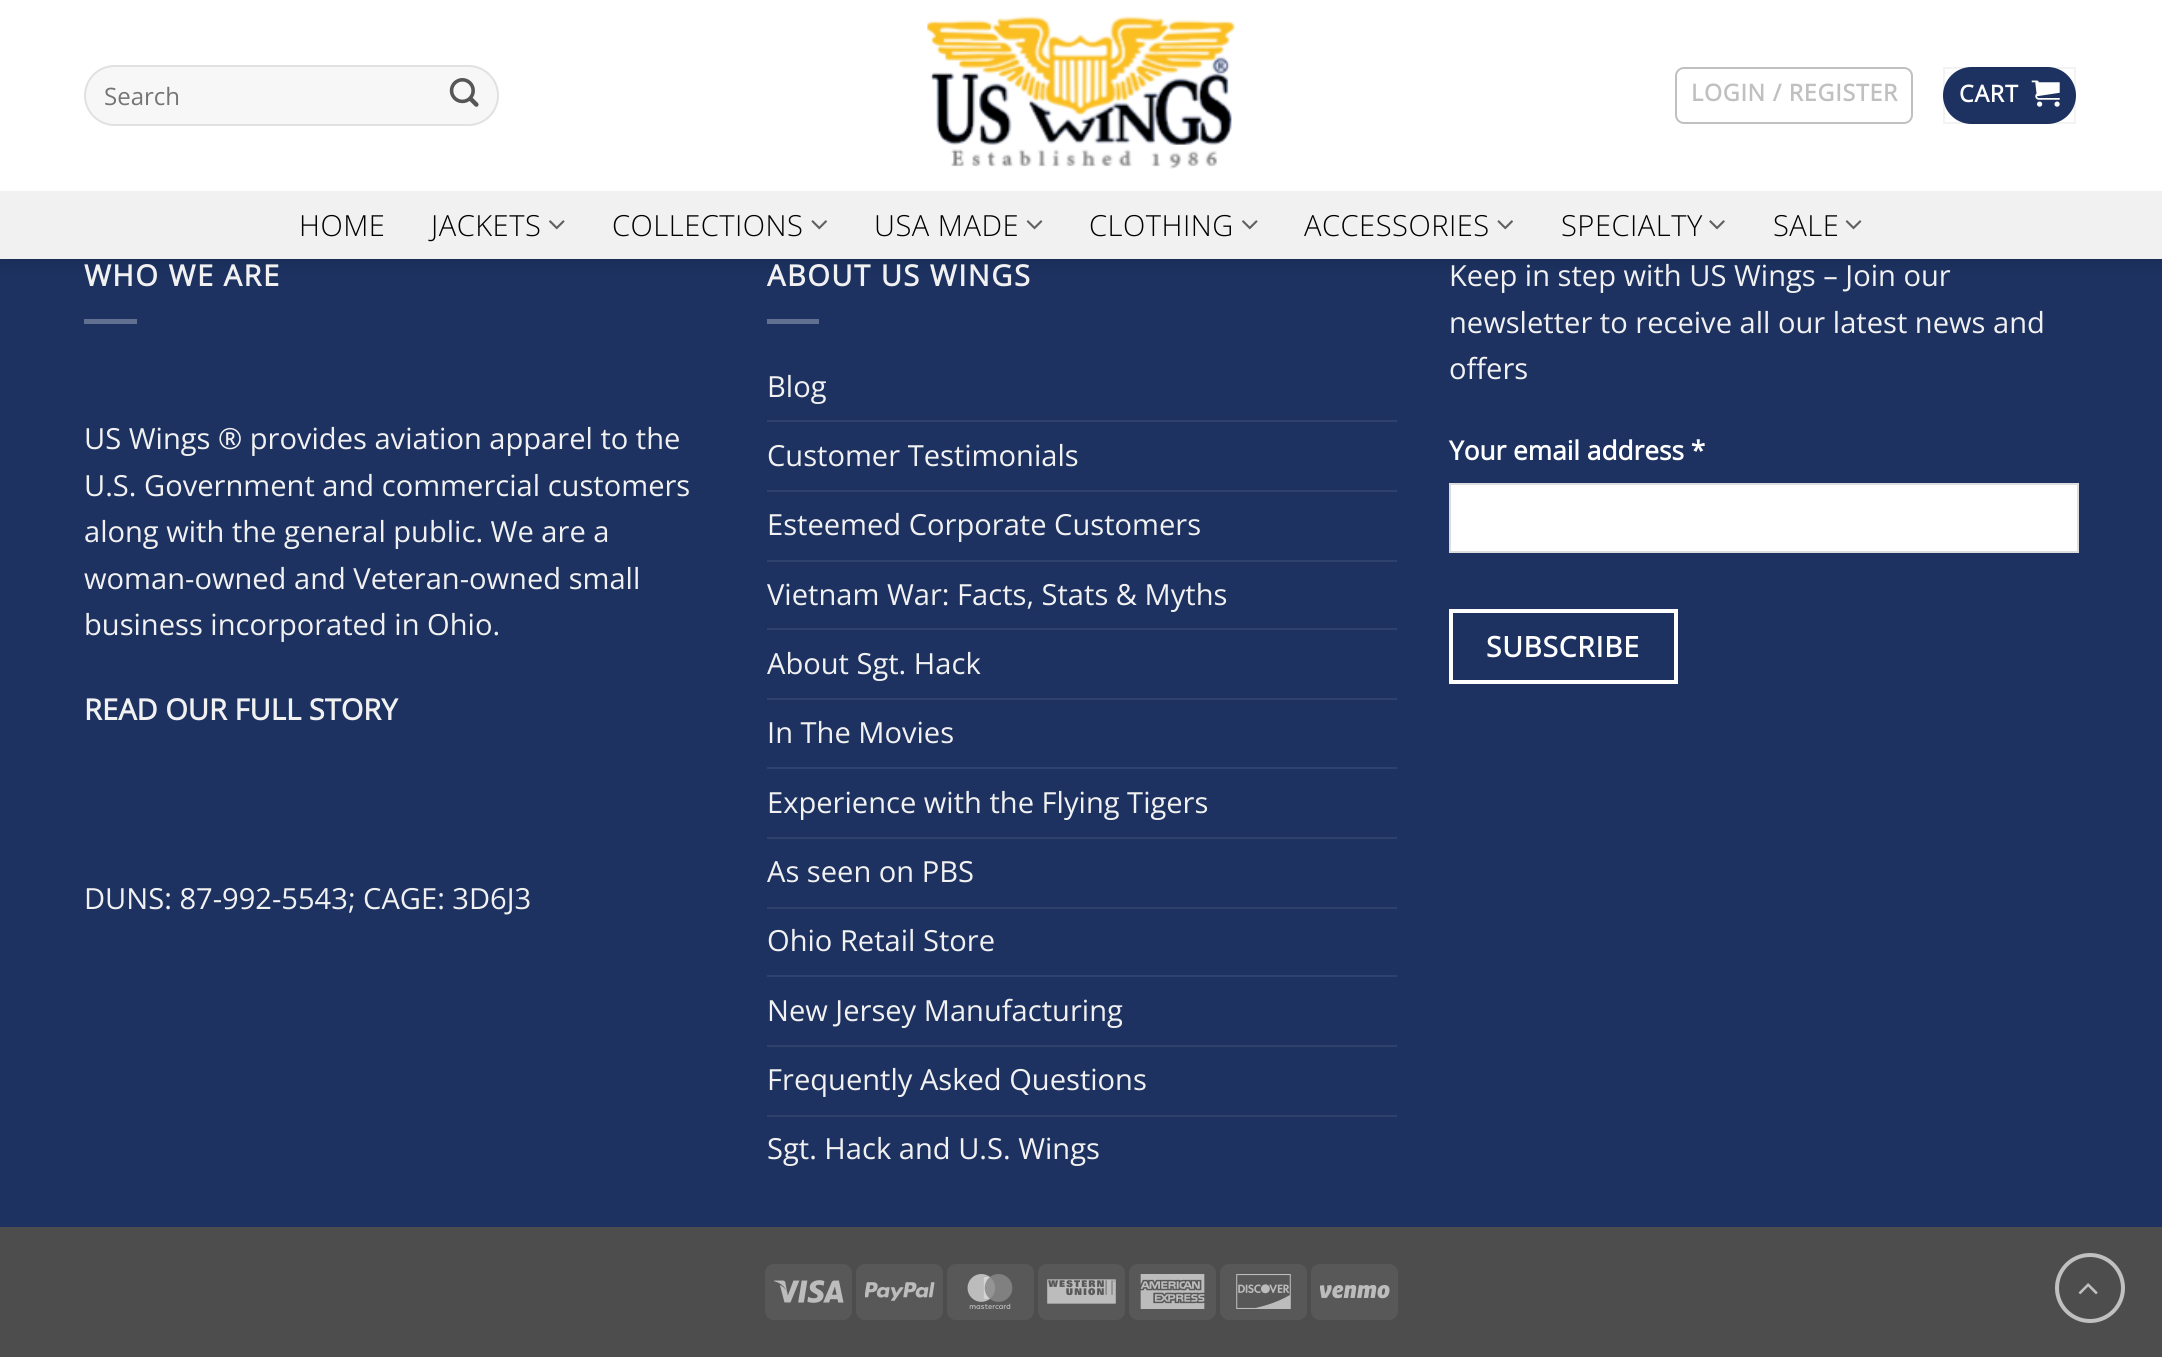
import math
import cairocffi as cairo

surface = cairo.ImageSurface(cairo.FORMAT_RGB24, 2162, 1357)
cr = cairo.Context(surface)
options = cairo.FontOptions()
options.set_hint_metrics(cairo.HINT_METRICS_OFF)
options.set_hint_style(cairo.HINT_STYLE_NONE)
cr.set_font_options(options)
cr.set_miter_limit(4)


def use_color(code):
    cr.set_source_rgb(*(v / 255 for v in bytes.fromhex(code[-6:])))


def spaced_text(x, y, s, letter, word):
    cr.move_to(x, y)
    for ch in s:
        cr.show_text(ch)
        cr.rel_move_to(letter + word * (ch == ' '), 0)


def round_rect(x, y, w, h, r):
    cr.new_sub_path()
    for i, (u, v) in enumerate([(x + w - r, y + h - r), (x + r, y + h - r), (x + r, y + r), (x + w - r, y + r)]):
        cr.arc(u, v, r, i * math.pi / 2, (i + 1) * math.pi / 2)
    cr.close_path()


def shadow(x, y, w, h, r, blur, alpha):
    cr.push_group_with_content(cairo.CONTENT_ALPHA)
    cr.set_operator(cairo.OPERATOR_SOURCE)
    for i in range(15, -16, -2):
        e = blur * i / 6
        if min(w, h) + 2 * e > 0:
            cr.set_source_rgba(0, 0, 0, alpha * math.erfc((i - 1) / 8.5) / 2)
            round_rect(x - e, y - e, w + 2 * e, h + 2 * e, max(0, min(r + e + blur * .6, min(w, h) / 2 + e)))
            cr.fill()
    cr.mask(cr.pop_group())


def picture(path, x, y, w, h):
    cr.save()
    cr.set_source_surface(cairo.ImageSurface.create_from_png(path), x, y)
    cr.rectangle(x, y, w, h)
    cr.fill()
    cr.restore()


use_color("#1d3261")
cr.paint()
use_color("#000000")
shadow(2, 2, 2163, 259, 0, 9, 0.15)
use_color("#ffffff")
cr.rectangle(0, 0, 2162, 191)
cr.fill()
use_color("#f7f7f7")
round_rect(84, 65, 415, 61, 30.5)
cr.fill()
round_rect(85, 66, 413, 59, 29.5)
cr.set_source_rgba(0, 0, 0, 0.09)
cr.stroke()
cr.select_font_face("Open Sans")
cr.set_font_size(24)
use_color("#757575")
cr.move_to(104, 105)
cr.show_text("Search")
picture("img1.png", 449, 78, 30, 29)
picture("img2.png", 927, 16, 308, 153)
round_rect(1676, 68, 236, 55, 8)
use_color("#c0c0c0")
cr.stroke()
cr.select_font_face("Open Sans", cairo.FONT_SLANT_NORMAL, cairo.FONT_WEIGHT_BOLD)
cr.set_font_size(23.25)
spaced_text(1691, 101, "LOGIN / REGISTER", 0.75, 0)
use_color("#1d3261")
round_rect(1943, 67, 133, 57, 28.5)
cr.fill()
cr.rectangle(1944, 68, 131, 55)
cr.set_source_rgba(0, 0, 0, 0.05)
cr.stroke()
use_color("#ffffff")
spaced_text(1959, 102, "CART", 0.75, 0)
picture("img3.png", 2031, 80, 29, 27)
use_color("#f1f1f1")
cr.rectangle(0, 191, 2162, 68)
cr.fill()
cr.select_font_face("Open Sans Light")
cr.set_font_size(29.1)
use_color("#000000")
spaced_text(299, 236, "HOME", 0.5, 0)
spaced_text(431, 236, "JACKETS", 0.5, 0)
picture("img4.png", 549, 220, 16, 10)
spaced_text(612, 236, "COLLECTIONS", 0.5, 0)
picture("img5.png", 811, 220, 16, 10)
spaced_text(874, 236, "USA MADE", 0.5, 0)
picture("img6.png", 1026, 220, 17, 10)
spaced_text(1089, 236, "CLOTHING", 0.5, 0)
picture("img4.png", 1242, 220, 16, 10)
spaced_text(1304, 236, "ACCESSORIES", 0.5, 0)
picture("img5.png", 1497, 220, 16, 10)
spaced_text(1561, 236, "SPECIALTY", 0.5, 0)
picture("img7.png", 1709, 220, 16, 10)
spaced_text(1773, 236, "SALE", 0.5, 0)
picture("img6.png", 1845, 220, 17, 10)
cr.select_font_face("Open Sans", cairo.FONT_SLANT_NORMAL, cairo.FONT_WEIGHT_BOLD)
use_color("#f1f1f1")
spaced_text(84, 286, "WHO WE ARE", 1.5, 0)
use_color("#617090")
cr.rectangle(84, 319, 53, 5)
cr.fill()
cr.select_font_face("Open Sans")
use_color("#f1f1f1")
cr.move_to(84, 449)
cr.show_text("US Wings ® provides aviation apparel to the")
cr.move_to(84, 496)
cr.show_text("U.S. Government and commercial customers")
cr.move_to(84, 542)
cr.show_text("along with the general public. We are a")
cr.move_to(84, 589)
cr.show_text("woman-owned and Veteran-owned small")
cr.move_to(84, 635)
cr.show_text("business incorporated in Ohio.")
cr.select_font_face("Open Sans", cairo.FONT_SLANT_NORMAL, cairo.FONT_WEIGHT_BOLD)
cr.move_to(84, 720)
cr.show_text("READ OUR FULL STORY")
cr.select_font_face("Open Sans")
cr.move_to(84, 909)
cr.show_text("DUNS: 87-992-5543; CAGE: 3D6J3")
cr.select_font_face("Open Sans", cairo.FONT_SLANT_NORMAL, cairo.FONT_WEIGHT_BOLD)
spaced_text(767, 286, "ABOUT US WINGS", 1.5, 0)
use_color("#617090")
cr.rectangle(767, 319, 52, 5)
cr.fill()
cr.select_font_face("Open Sans")
use_color("#f1f1f1")
cr.move_to(767, 397)
cr.show_text("Blog")
use_color("#2f426e")
cr.rectangle(767, 420, 630, 2)
cr.fill()
use_color("#f1f1f1")
cr.move_to(767, 466)
cr.show_text("Customer Testimonials")
use_color("#2f426e")
cr.rectangle(767, 490, 630, 2)
cr.fill()
use_color("#f1f1f1")
cr.move_to(767, 535)
cr.show_text("Esteemed Corporate Customers")
use_color("#2f426e")
cr.rectangle(767, 560, 630, 2)
cr.fill()
use_color("#f1f1f1")
cr.move_to(767, 605)
cr.show_text("Vietnam War: Facts, Stats & Myths")
use_color("#2f426e")
cr.rectangle(767, 628, 630, 2)
cr.fill()
use_color("#f1f1f1")
cr.move_to(767, 674)
cr.show_text("About Sgt. Hack")
use_color("#2f426e")
cr.rectangle(767, 698, 630, 2)
cr.fill()
use_color("#f1f1f1")
cr.move_to(767, 743)
cr.show_text("In The Movies")
use_color("#2f426e")
cr.rectangle(767, 767, 630, 2)
cr.fill()
use_color("#f1f1f1")
cr.move_to(767, 813)
cr.show_text("Experience with the Flying Tigers")
use_color("#2f426e")
cr.rectangle(767, 837, 630, 2)
cr.fill()
use_color("#f1f1f1")
cr.move_to(767, 882)
cr.show_text("As seen on PBS")
use_color("#2f426e")
cr.rectangle(767, 907, 630, 2)
cr.fill()
use_color("#f1f1f1")
cr.move_to(767, 951)
cr.show_text("Ohio Retail Store")
use_color("#2f426e")
cr.rectangle(767, 975, 630, 2)
cr.fill()
use_color("#f1f1f1")
cr.move_to(767, 1021)
cr.show_text("New Jersey Manufacturing")
use_color("#2f426e")
cr.rectangle(767, 1045, 630, 2)
cr.fill()
use_color("#f1f1f1")
cr.move_to(767, 1090)
cr.show_text("Frequently Asked Questions")
use_color("#2f426e")
cr.rectangle(767, 1115, 630, 2)
cr.fill()
use_color("#f1f1f1")
cr.move_to(767, 1159)
cr.show_text("Sgt. Hack and U.S. Wings")
cr.move_to(1449, 286)
cr.show_text("Keep in step with US Wings – Join our")
cr.move_to(1449, 333)
cr.show_text("newsletter to receive all our latest news and")
cr.move_to(1449, 379)
cr.show_text("offers")
cr.select_font_face("Open Sans", cairo.FONT_SLANT_NORMAL, cairo.FONT_WEIGHT_BOLD)
cr.set_font_size(26.25)
use_color("#ffffff")
cr.move_to(1449, 460)
cr.show_text("Your email address *")
cr.rectangle(1450, 484, 628, 68)
cr.fill_preserve()
use_color("#dddddd")
cr.stroke()
cr.rectangle(1451, 611, 225, 71)
use_color("#ffffff")
cr.set_line_width(4)
cr.stroke()
cr.set_font_size(28.25)
spaced_text(1486, 657, "SUBSCRIBE", 0.75, 0)
use_color("#4d4d4d")
cr.rectangle(0, 1227, 2162, 130)
cr.fill()
use_color("#585858")
round_rect(765, 1264, 87, 56, 9)
cr.fill()
picture("img8.png", 774, 1280, 70, 23)
round_rect(856, 1264, 87, 56, 9)
cr.fill()
picture("img9.png", 865, 1282, 70, 19)
round_rect(947, 1264, 87, 56, 9)
cr.fill()
picture("img10.png", 967, 1274, 46, 35)
round_rect(1038, 1264, 87, 56, 9)
cr.fill()
picture("img11.png", 1047, 1279, 69, 25)
round_rect(1129, 1264, 87, 56, 9)
cr.fill()
picture("img12.png", 1140, 1274, 65, 35)
round_rect(1220, 1264, 87, 56, 9)
cr.fill()
picture("img13.png", 1236, 1274, 55, 35)
round_rect(1311, 1264, 87, 56, 9)
cr.fill()
picture("img14.png", 1320, 1285, 70, 14)
cr.arc(2090, 1288, 33, 0, 2 * math.pi)
use_color("#c0c0c0")
cr.stroke()
picture("img15.png", 2078, 1283, 20, 12)
surface.write_to_png("result.png")
